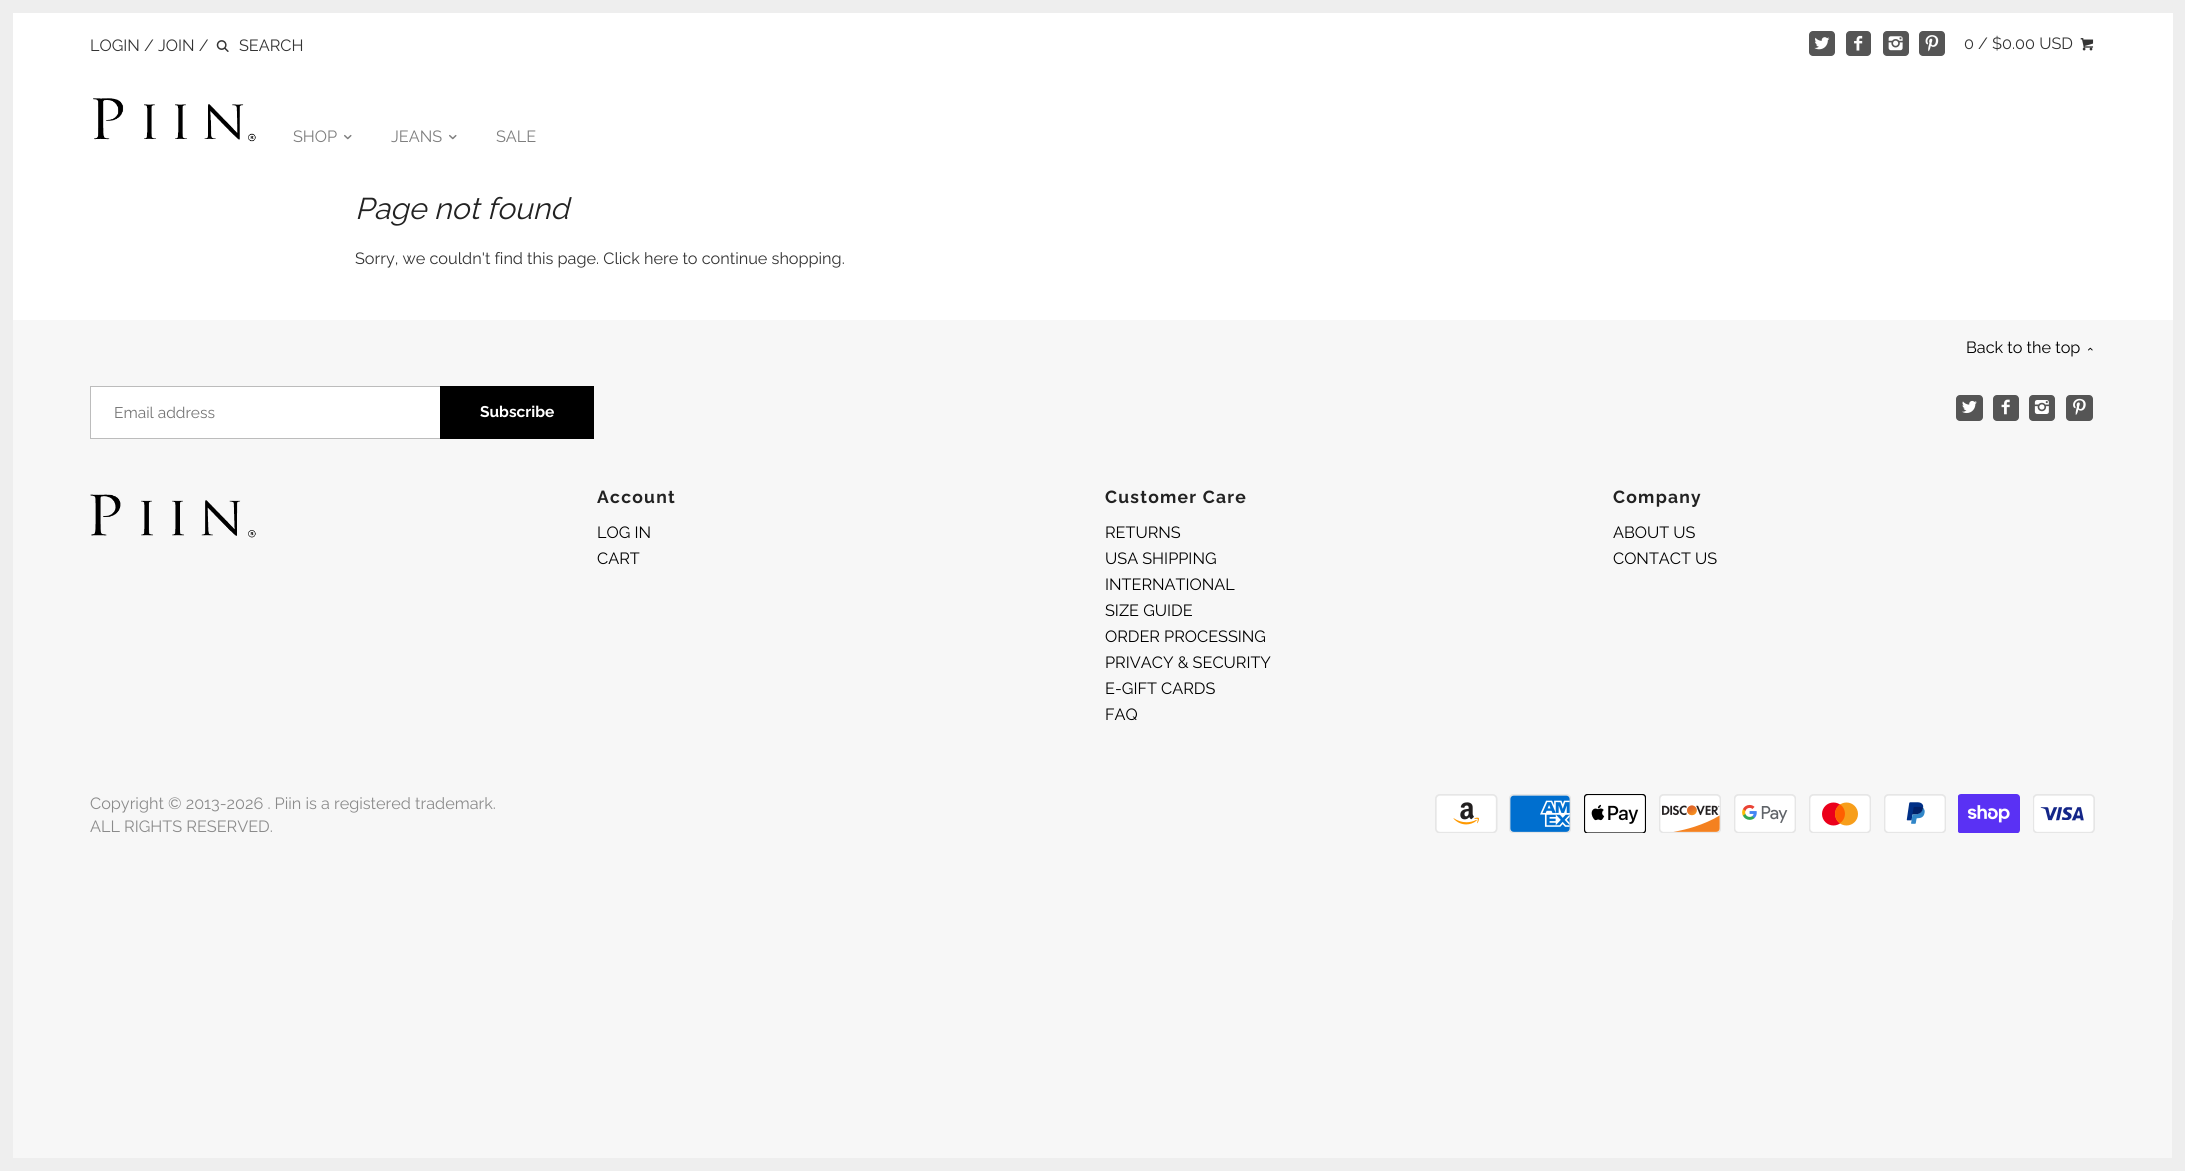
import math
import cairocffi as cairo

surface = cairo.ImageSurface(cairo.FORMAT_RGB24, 2185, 1171)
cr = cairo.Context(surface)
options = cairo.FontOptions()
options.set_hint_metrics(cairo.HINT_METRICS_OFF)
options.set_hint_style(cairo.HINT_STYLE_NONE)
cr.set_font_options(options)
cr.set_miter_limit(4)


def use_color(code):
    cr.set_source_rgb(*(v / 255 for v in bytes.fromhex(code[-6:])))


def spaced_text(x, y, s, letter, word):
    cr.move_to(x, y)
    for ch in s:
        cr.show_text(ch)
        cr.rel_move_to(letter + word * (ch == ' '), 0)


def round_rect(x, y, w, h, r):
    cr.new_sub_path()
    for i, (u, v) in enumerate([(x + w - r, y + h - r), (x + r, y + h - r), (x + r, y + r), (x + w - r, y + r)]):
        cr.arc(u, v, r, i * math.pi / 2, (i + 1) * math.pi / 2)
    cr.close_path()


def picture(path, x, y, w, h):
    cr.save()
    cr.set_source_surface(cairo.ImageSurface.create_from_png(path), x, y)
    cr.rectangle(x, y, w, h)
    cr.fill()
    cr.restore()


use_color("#f7f7f7")
cr.paint()
cr.rectangle(6.5, 6.5, 2172, 1158)
use_color("#eeeeee")
cr.set_line_width(13)
cr.stroke()
use_color("#ffffff")
cr.rectangle(13, 13, 2160, 307)
cr.fill()
cr.select_font_face("Raleway")
cr.set_font_size(16.25)
use_color("#333333")
cr.move_to(90, 51)
cr.show_text("LOGIN / JOIN /")
picture("img1.png", 216, 40, 13, 12)
cr.move_to(239, 51)
cr.show_text("SEARCH")
use_color("#555555")
round_rect(1809, 31, 26, 25, 4)
cr.fill()
picture("img2.png", 1814, 37, 16, 13)
round_rect(1846, 31, 25, 25, 4)
cr.fill()
picture("img3.png", 1854, 35, 9, 16)
round_rect(1883, 31, 26, 25, 4)
cr.fill()
picture("img4.png", 1888, 36, 15, 15)
round_rect(1919, 31, 26, 25, 4)
cr.fill()
picture("img5.png", 1925, 35, 14, 17)
use_color("#333333")
cr.move_to(1964, 49)
cr.show_text("0 / $0.00 USD")
picture("img6.png", 2080, 38, 14, 13)
picture("img7.png", 93, 98, 163, 44)
use_color("#7e7e7e")
cr.move_to(293, 142)
cr.show_text("SHOP")
picture("img8.png", 344, 134, 8, 6)
cr.move_to(391, 142)
cr.show_text("JEANS")
picture("img8.png", 449, 134, 8, 6)
cr.move_to(496, 142)
cr.show_text("SALE")
cr.select_font_face("Raleway", cairo.FONT_SLANT_ITALIC)
cr.set_font_size(30)
use_color("#222222")
cr.move_to(355, 219)
cr.show_text("Page not found")
cr.select_font_face("Raleway")
cr.set_font_size(16.25)
use_color("#333333")
cr.move_to(355, 264)
cr.show_text("Sorry, we couldn't find this page. Click here to continue shopping.")
use_color("#f7f7f7")
cr.rectangle(2172, 320, 1, 600)
cr.fill()
use_color("#000000")
cr.move_to(1966, 353)
cr.show_text("Back to the top")
picture("img9.png", 2088, 347, 5, 4)
use_color("#ffffff")
cr.rectangle(91, 387, 349, 51)
cr.fill()
cr.rectangle(90.5, 386.5, 502, 52)
use_color("#bcbcbc")
cr.set_line_width(1)
cr.stroke()
cr.set_font_size(15.5)
use_color("#757575")
cr.move_to(114, 418)
cr.show_text("Email address")
use_color("#000000")
cr.rectangle(440, 386, 154, 53)
cr.fill()
cr.select_font_face("Raleway", cairo.FONT_SLANT_NORMAL, cairo.FONT_WEIGHT_BOLD)
use_color("#ffffff")
cr.move_to(480, 417)
cr.show_text("Subscribe")
use_color("#555555")
round_rect(1956, 395, 27, 26, 4)
cr.fill()
picture("img10.png", 1962, 400, 15, 14)
round_rect(1993, 395, 26, 26, 4)
cr.fill()
picture("img11.png", 2001, 399, 9, 16)
round_rect(2029, 395, 26, 26, 4)
cr.fill()
picture("img12.png", 2034, 400, 15, 14)
round_rect(2066, 395, 27, 26, 4)
cr.fill()
picture("img13.png", 2073, 398, 13, 17)
picture("img14.png", 90, 494, 166, 44)
cr.set_font_size(17.5)
use_color("#222222")
spaced_text(597, 503, "Account", 1.25, 0)
cr.select_font_face("Raleway")
cr.set_font_size(16.25)
use_color("#000000")
cr.move_to(597, 538)
cr.show_text("LOG IN")
cr.move_to(597, 564)
cr.show_text("CART")
cr.select_font_face("Raleway", cairo.FONT_SLANT_NORMAL, cairo.FONT_WEIGHT_BOLD)
cr.set_font_size(17.5)
use_color("#222222")
spaced_text(1105, 503, "Customer Care", 1.25, 0)
cr.select_font_face("Raleway")
cr.set_font_size(16.25)
use_color("#000000")
cr.move_to(1105, 538)
cr.show_text("RETURNS")
cr.move_to(1105, 564)
cr.show_text("USA SHIPPING")
cr.move_to(1105, 590)
cr.show_text("INTERNATIONAL")
cr.move_to(1105, 616)
cr.show_text("SIZE GUIDE")
cr.move_to(1105, 642)
cr.show_text("ORDER PROCESSING")
cr.move_to(1105, 668)
cr.show_text("PRIVACY & SECURITY")
cr.move_to(1105, 694)
cr.show_text("E-GIFT CARDS")
cr.move_to(1105, 720)
cr.show_text("FAQ")
cr.select_font_face("Raleway", cairo.FONT_SLANT_NORMAL, cairo.FONT_WEIGHT_BOLD)
cr.set_font_size(17.5)
use_color("#222222")
spaced_text(1613, 503, "Company", 1.25, 0)
cr.select_font_face("Raleway")
cr.set_font_size(16.25)
use_color("#000000")
cr.move_to(1613, 538)
cr.show_text("ABOUT US")
cr.move_to(1613, 564)
cr.show_text("CONTACT US")
use_color("#8b8b8b")
cr.move_to(90, 809)
cr.show_text("Copyright © 2013-2026 . Piin is a registered trademark.")
cr.move_to(90, 832)
cr.show_text("ALL RIGHTS RESERVED.")
picture("img15.png", 1435, 794, 63, 39)
picture("img16.png", 1509, 794, 62, 39)
picture("img17.png", 1584, 794, 62, 39)
picture("img18.png", 1659, 794, 62, 39)
picture("img19.png", 1734, 794, 62, 39)
picture("img20.png", 1809, 794, 62, 39)
picture("img21.png", 1884, 794, 62, 39)
picture("img22.png", 1958, 794, 62, 39)
picture("img23.png", 2033, 794, 62, 39)
surface.write_to_png("result.png")
